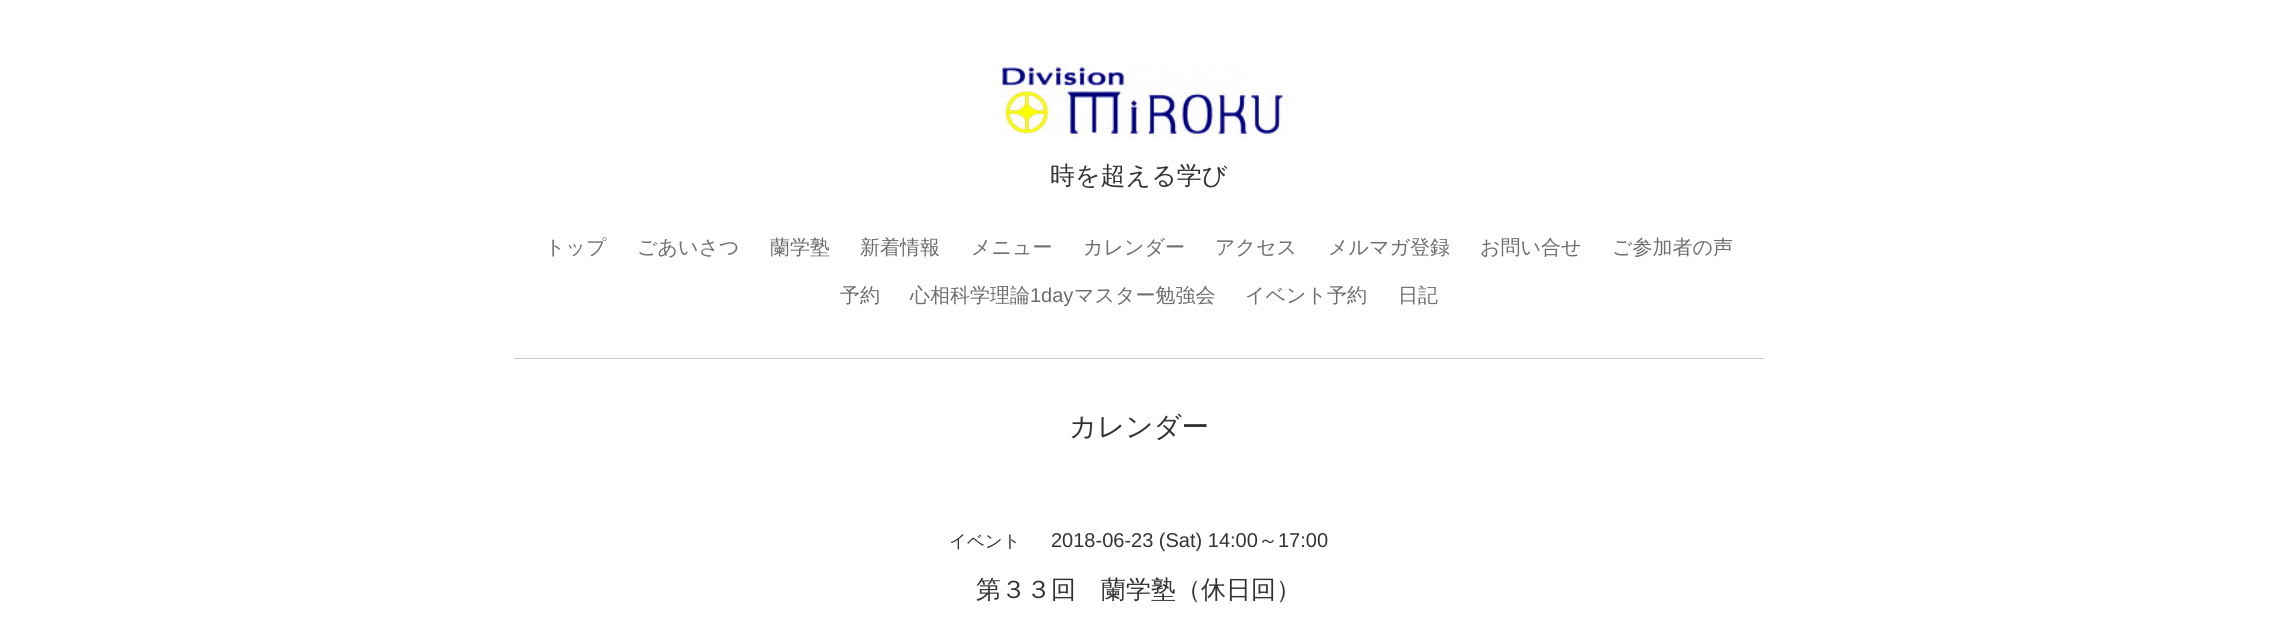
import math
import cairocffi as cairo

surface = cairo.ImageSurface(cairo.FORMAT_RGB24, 2277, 633)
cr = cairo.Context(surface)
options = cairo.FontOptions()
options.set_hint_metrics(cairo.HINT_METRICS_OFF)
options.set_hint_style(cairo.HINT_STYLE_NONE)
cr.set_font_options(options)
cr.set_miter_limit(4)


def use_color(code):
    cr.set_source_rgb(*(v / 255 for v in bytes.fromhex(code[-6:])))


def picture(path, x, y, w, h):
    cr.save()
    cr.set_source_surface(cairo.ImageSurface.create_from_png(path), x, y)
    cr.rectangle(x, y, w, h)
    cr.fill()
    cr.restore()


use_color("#ffffff")
cr.paint()
use_color("#c6c6c6")
cr.rectangle(514, 358, 1250, 1)
cr.fill()
picture("img1.png", 999, 62, 290, 77)
cr.select_font_face("WenQuanYi Zen Hei Medium")
cr.set_font_size(25)
use_color("#333333")
cr.move_to(1050, 184)
cr.show_text("時を超える学び")
cr.set_font_size(20)
use_color("#6d6d6d")
cr.move_to(545, 254)
cr.show_text("トップ")
cr.move_to(637, 254)
cr.show_text("ごあいさつ")
cr.move_to(770, 254)
cr.show_text("蘭学塾")
cr.move_to(860, 254)
cr.show_text("新着情報")
cr.move_to(971, 254)
cr.show_text("メニュー")
cr.move_to(1083, 254)
cr.show_text("カレンダー")
cr.move_to(1215, 254)
cr.show_text("アクセス")
cr.move_to(1328, 254)
cr.show_text("メルマガ登録")
cr.move_to(1480, 254)
cr.show_text("お問い合せ")
cr.move_to(1612, 254)
cr.show_text("ご参加者の声")
cr.move_to(840, 302)
cr.show_text("予約")
cr.move_to(910, 302)
cr.show_text("心相科学理論")
cr.select_font_face("Liberation Sans")
cr.move_to(1030, 302)
cr.show_text("1day")
cr.select_font_face("WenQuanYi Zen Hei Medium")
cr.move_to(1074, 302)
cr.show_text("マスター勉強会")
cr.move_to(1245, 302)
cr.show_text("イベント予約")
cr.move_to(1398, 302)
cr.show_text("日記")
cr.set_font_size(27.5)
use_color("#333333")
cr.move_to(1069, 436)
cr.show_text("カレンダー")
cr.set_font_size(17.5)
cr.move_to(949, 547)
cr.show_text("イベント")
cr.select_font_face("Liberation Sans")
cr.set_font_size(20)
cr.move_to(1051, 547)
cr.show_text("2018-06-23 (Sat) 14:00")
cr.select_font_face("WenQuanYi Zen Hei Medium")
cr.move_to(1258, 547)
cr.show_text("～")
cr.select_font_face("Liberation Sans")
cr.move_to(1278, 547)
cr.show_text("17:00")
cr.select_font_face("WenQuanYi Zen Hei Medium")
cr.set_font_size(25)
cr.move_to(976, 598)
cr.show_text("第３３回　蘭学塾（休日回）")
surface.write_to_png("result.png")
